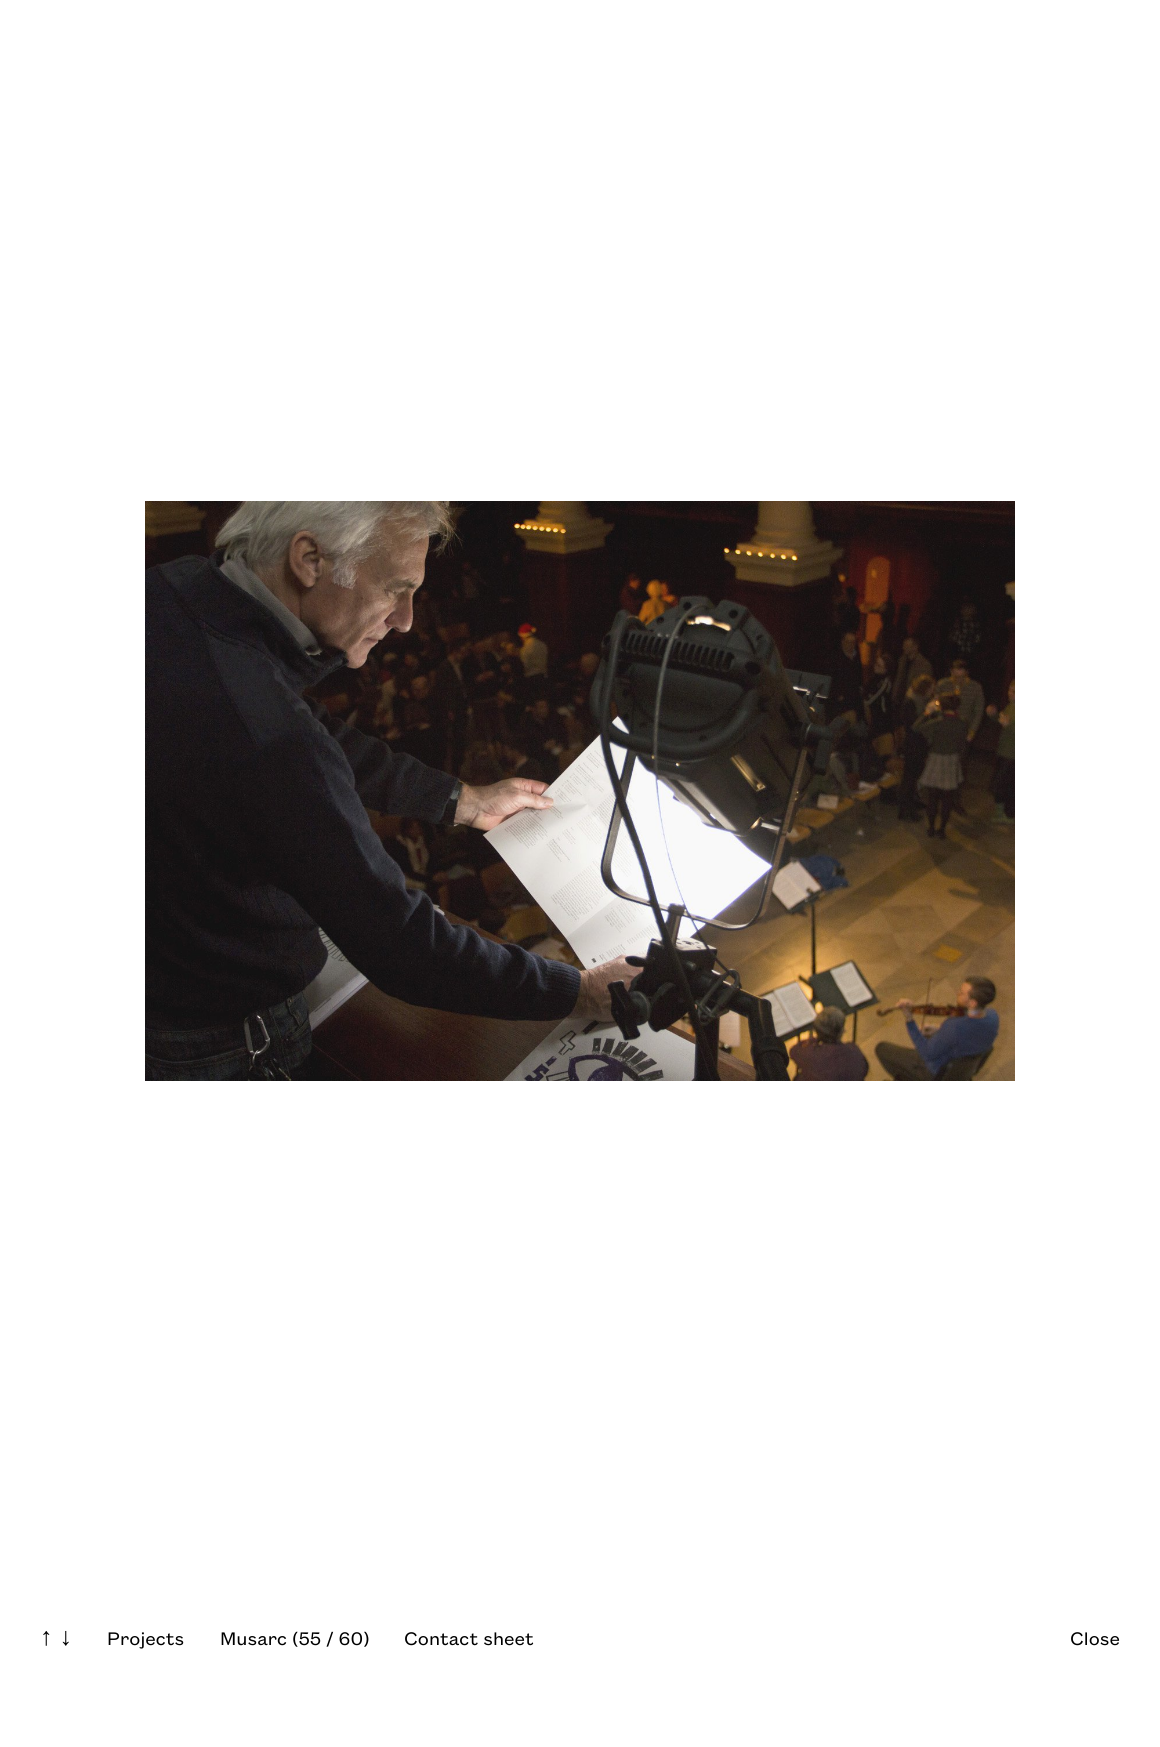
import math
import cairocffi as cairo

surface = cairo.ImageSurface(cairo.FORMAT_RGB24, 1160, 1747)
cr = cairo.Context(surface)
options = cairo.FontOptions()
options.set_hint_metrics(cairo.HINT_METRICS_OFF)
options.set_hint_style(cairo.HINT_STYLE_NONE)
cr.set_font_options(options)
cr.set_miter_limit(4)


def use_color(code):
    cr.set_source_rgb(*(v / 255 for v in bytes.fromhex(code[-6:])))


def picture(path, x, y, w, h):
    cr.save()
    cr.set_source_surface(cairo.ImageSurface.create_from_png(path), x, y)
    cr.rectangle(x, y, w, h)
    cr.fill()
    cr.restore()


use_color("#ffffff")
cr.paint()
picture("img1.png", 145, 501, 870, 580)
cr.select_font_face("Liberation Sans")
cr.set_font_size(25)
use_color("#000000")
cr.move_to(40, 1645)
cr.show_text("↑ ↓")
cr.select_font_face("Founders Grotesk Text")
cr.set_font_size(20)
cr.move_to(107, 1645)
cr.show_text("Projects")
cr.move_to(220, 1645)
cr.show_text("Musarc (55 / 60)")
cr.move_to(404, 1645)
cr.show_text("Contact sheet")
cr.move_to(1070, 1645)
cr.show_text("Close")
surface.write_to_png("result.png")
